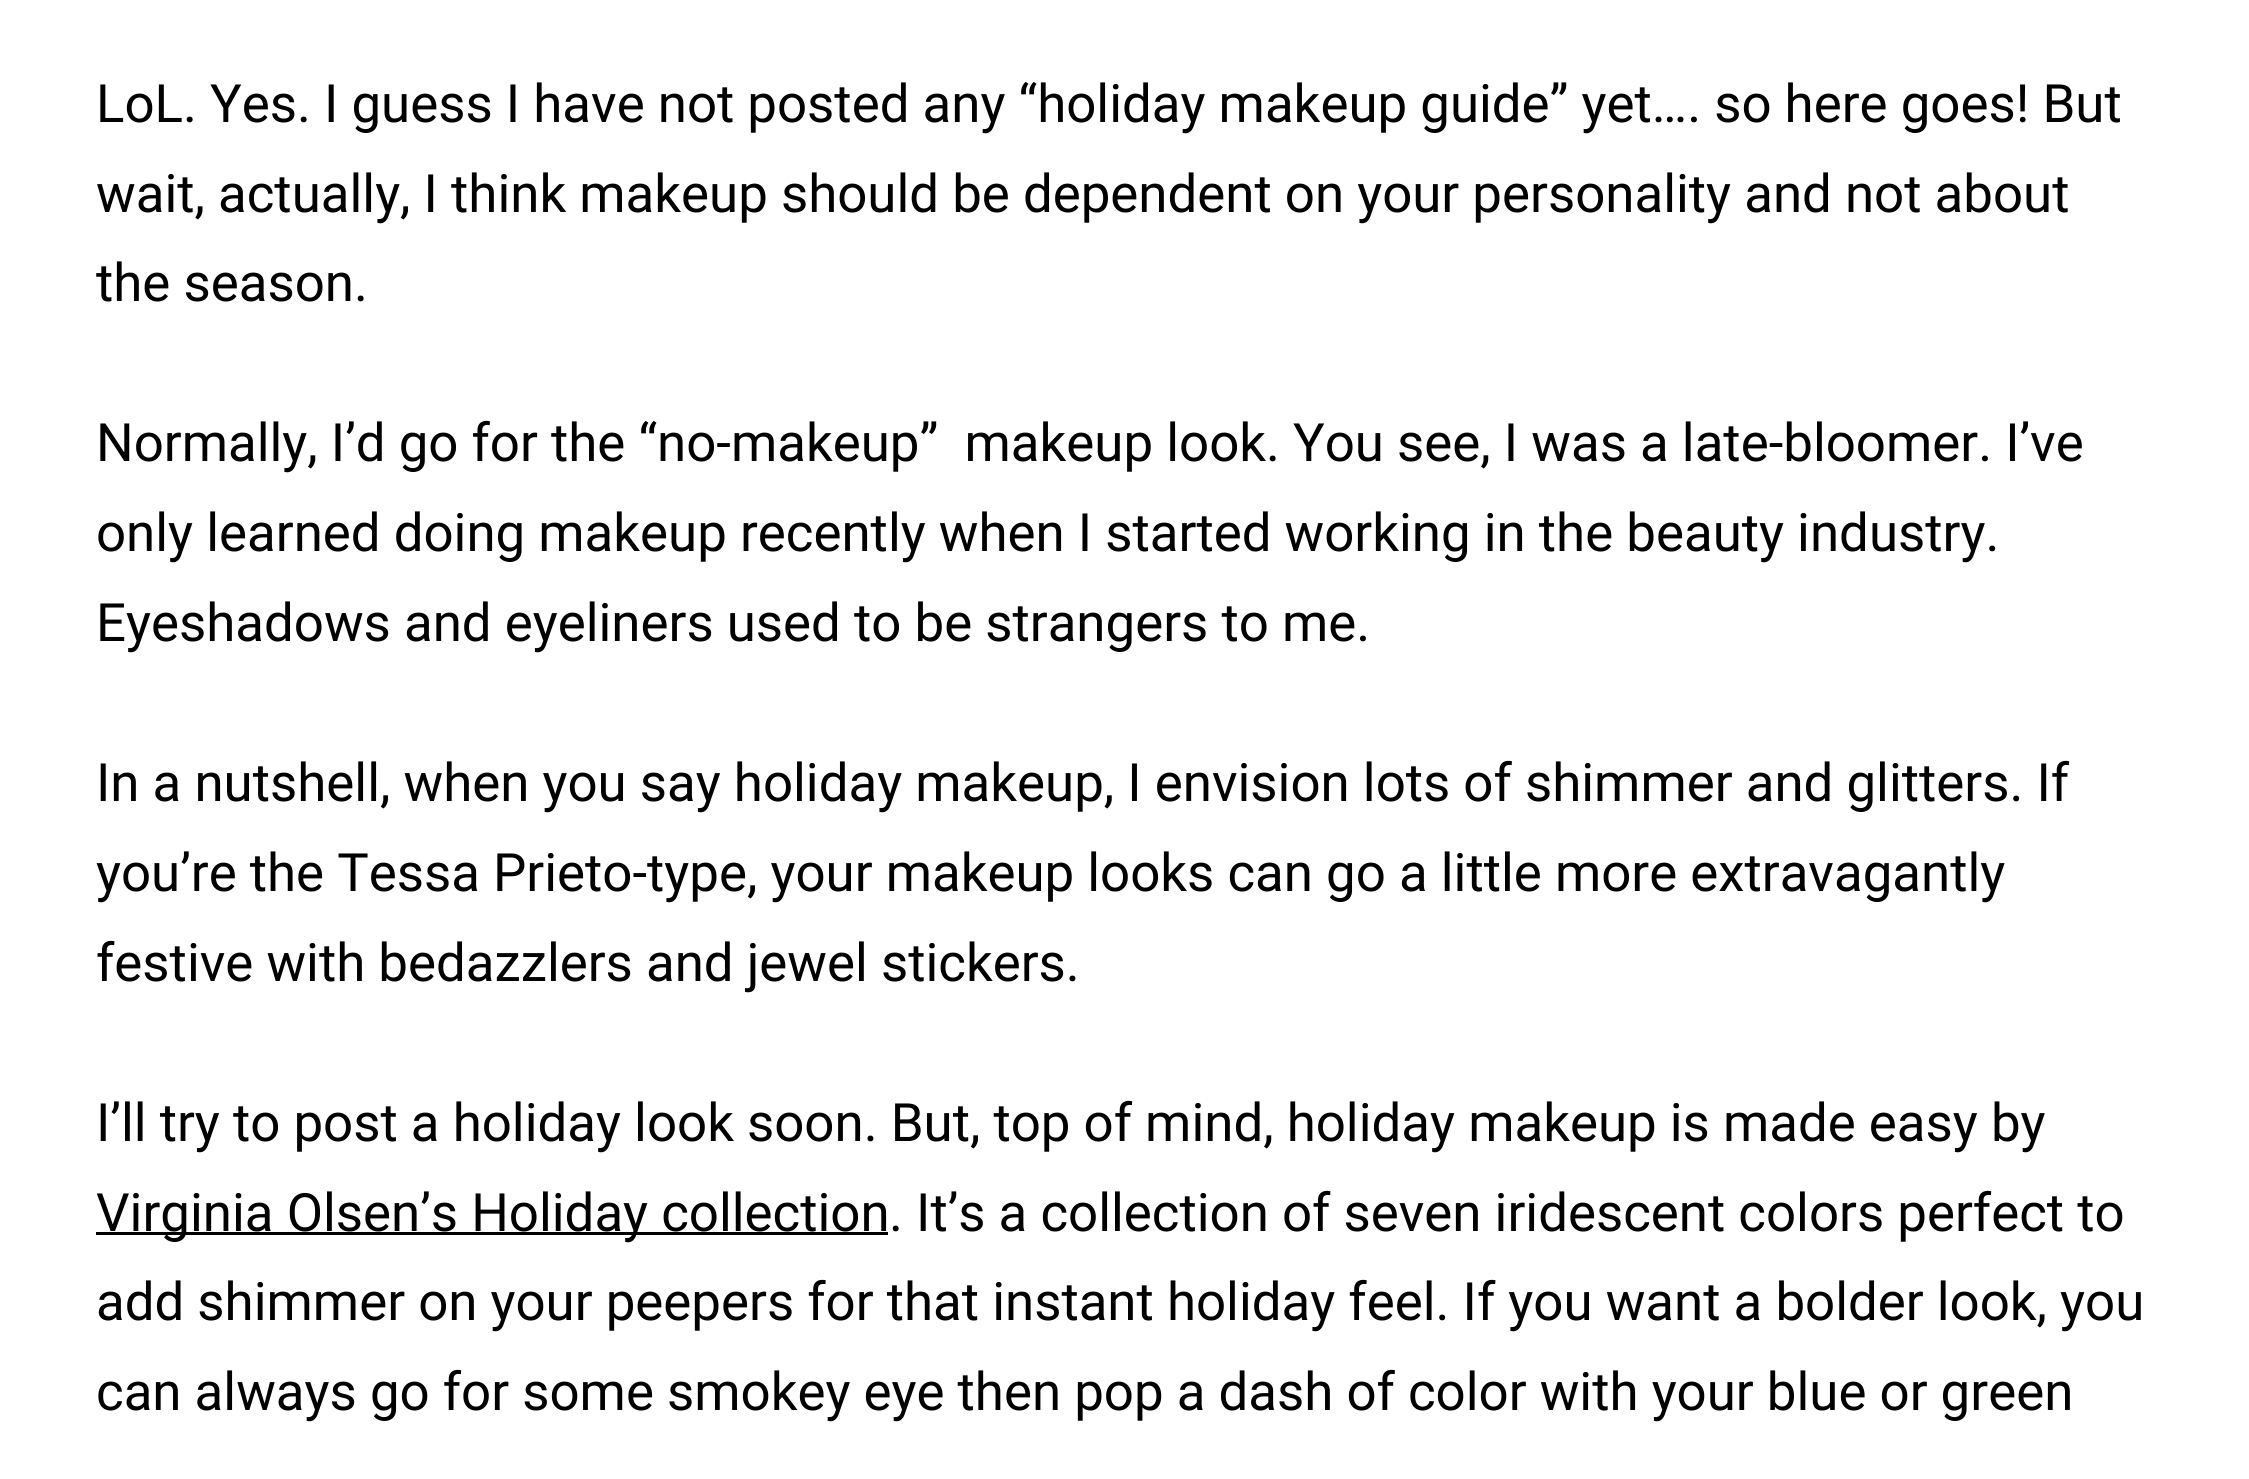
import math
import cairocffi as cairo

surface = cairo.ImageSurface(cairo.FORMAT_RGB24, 2249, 1479)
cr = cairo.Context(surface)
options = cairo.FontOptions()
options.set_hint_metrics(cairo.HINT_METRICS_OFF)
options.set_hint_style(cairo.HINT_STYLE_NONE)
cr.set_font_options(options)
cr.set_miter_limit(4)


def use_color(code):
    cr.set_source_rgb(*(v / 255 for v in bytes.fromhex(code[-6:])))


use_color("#ffffff")
cr.paint()
cr.select_font_face("Roboto")
cr.set_font_size(52.8)
use_color("#000001")
cr.move_to(96, 122)
cr.show_text("LoL. Yes. I guess I have not posted any “holiday makeup guide” yet…. so here goes! But")
cr.move_to(96, 212)
cr.show_text("wait, actually, I think makeup should be dependent on your personality and not about")
cr.move_to(96, 301)
cr.show_text("the season.")
cr.move_to(96, 461)
cr.show_text("Normally, I’d go for the “no-makeup”  makeup look. You see, I was a late-bloomer. I’ve")
cr.move_to(96, 551)
cr.show_text("only learned doing makeup recently when I started working in the beauty industry.")
cr.move_to(96, 641)
cr.show_text("Eyeshadows and eyeliners used to be strangers to me.")
cr.move_to(96, 801)
cr.show_text("In a nutshell, when you say holiday makeup, I envision lots of shimmer and glitters. If")
cr.move_to(96, 891)
cr.show_text("you’re the Tessa Prieto-type, your makeup looks can go a little more extravagantly")
cr.move_to(96, 981)
cr.show_text("festive with bedazzlers and jewel stickers.")
cr.move_to(96, 1141)
cr.show_text("I’ll try to post a holiday look soon. But, top of mind, holiday makeup is made easy by")
cr.rectangle(96, 1232, 792, 3)
cr.fill()
cr.move_to(96, 1231)
cr.show_text("Virginia Olsen’s Holiday collection")
cr.move_to(889, 1231)
cr.show_text(". It’s a collection of seven iridescent colors perfect to")
cr.move_to(96, 1320)
cr.show_text("add shimmer on your peepers for that instant holiday feel. If you want a bolder look, you")
cr.move_to(96, 1410)
cr.show_text("can always go for some smokey eye then pop a dash of color with your blue or green")
surface.write_to_png("result.png")
